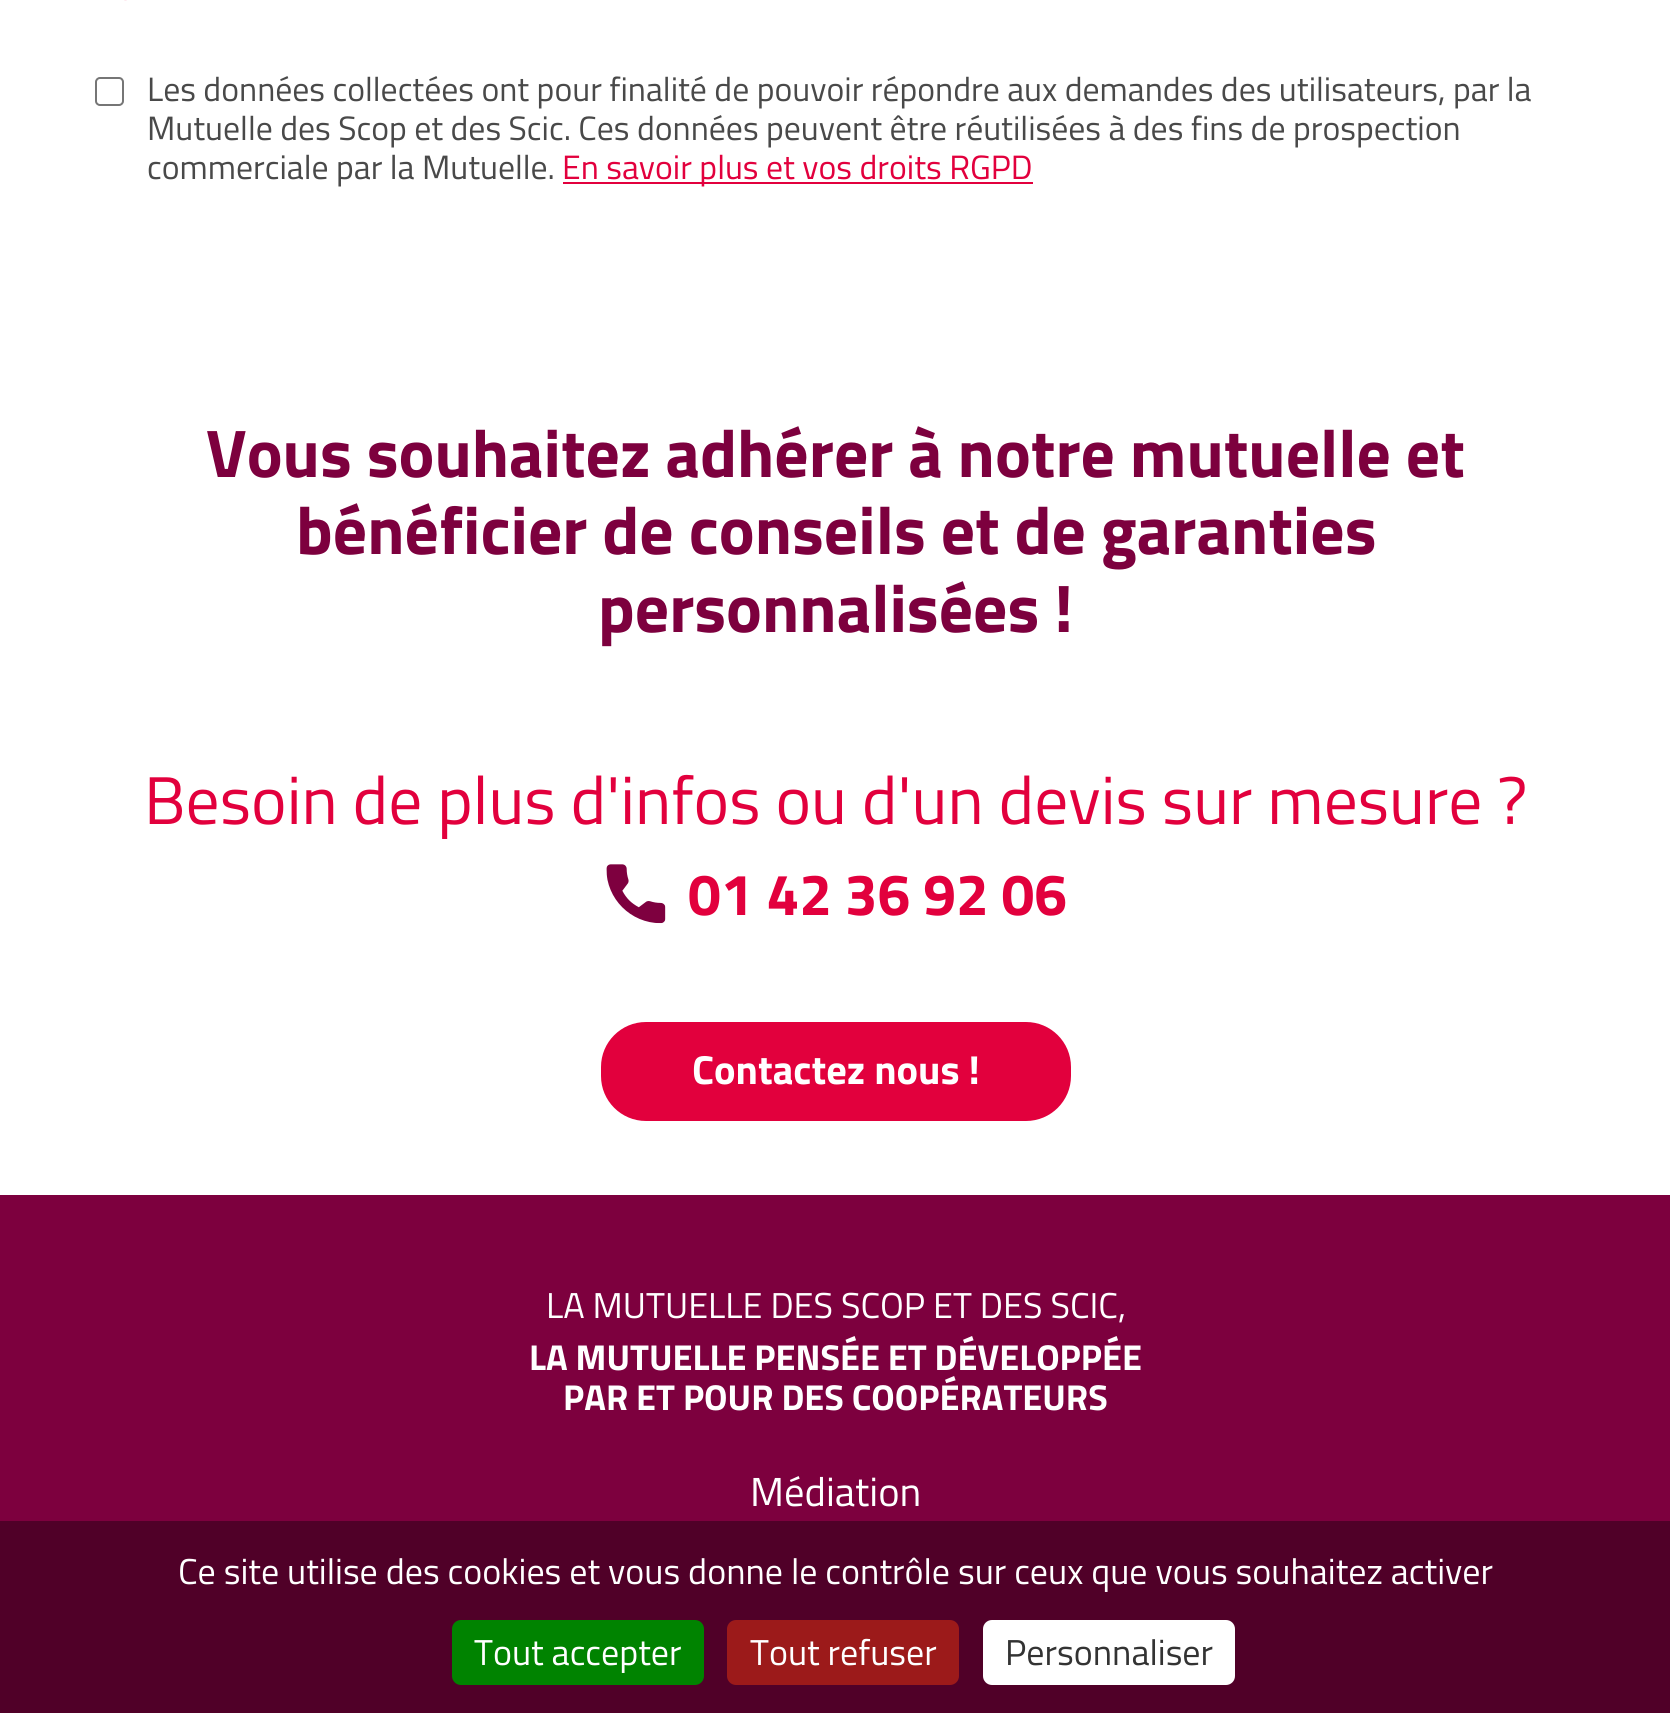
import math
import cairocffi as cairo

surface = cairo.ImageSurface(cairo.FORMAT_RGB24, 1670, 1713)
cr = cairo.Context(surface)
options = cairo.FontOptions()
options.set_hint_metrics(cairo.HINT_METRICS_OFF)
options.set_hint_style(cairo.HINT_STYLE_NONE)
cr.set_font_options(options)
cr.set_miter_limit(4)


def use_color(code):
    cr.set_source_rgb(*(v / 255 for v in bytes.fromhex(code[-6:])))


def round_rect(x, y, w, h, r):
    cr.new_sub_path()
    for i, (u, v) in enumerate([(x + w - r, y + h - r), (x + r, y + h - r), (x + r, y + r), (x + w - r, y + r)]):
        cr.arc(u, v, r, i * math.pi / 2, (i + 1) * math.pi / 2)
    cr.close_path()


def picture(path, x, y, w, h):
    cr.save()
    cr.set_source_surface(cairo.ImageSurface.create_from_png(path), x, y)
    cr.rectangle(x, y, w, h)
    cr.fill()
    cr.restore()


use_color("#ffffff")
cr.paint()
picture("img1.png", 124, 0, 3, 1)
round_rect(96, 78, 27, 27, 4)
use_color("#767676")
cr.stroke()
cr.select_font_face("Titillium Web")
cr.set_font_size(33.75)
use_color("#494949")
cr.move_to(147, 101)
cr.show_text("Les données collectées ont pour finalité de pouvoir répondre aux demandes des utilisateurs, par la")
cr.move_to(147, 140)
cr.show_text("Mutuelle des Scop et des Scic. Ces données peuvent être réutilisées à des fins de prospection")
cr.move_to(147, 179)
cr.show_text("commerciale par la Mutuelle.")
use_color("#e2003d")
cr.rectangle(563, 182, 470, 2)
cr.fill()
cr.move_to(562, 179)
cr.show_text("En savoir plus et vos droits RGPD")
cr.select_font_face("Titillium Web", cairo.FONT_SLANT_NORMAL, cairo.FONT_WEIGHT_BOLD)
cr.set_font_size(67.5)
use_color("#7d003e")
cr.move_to(206, 477)
cr.show_text("Vous souhaitez adhérer à notre mutuelle et")
cr.move_to(296, 554)
cr.show_text("bénéficier de conseils et de garanties")
cr.move_to(598, 632)
cr.show_text("personnalisées !")
cr.select_font_face("Titillium Web")
use_color("#e2003d")
cr.move_to(144, 824)
cr.show_text("Besoin de plus d'infos ou d'un devis sur mesure ?")
picture("img2.png", 606, 864, 60, 60)
cr.select_font_face("Titillium Web", cairo.FONT_SLANT_NORMAL, cairo.FONT_WEIGHT_BOLD)
cr.set_font_size(58.5)
cr.move_to(688, 915)
cr.show_text("01 42 36 92 06")
round_rect(602, 1023, 468, 97, 44)
cr.fill_preserve()
cr.stroke()
cr.set_font_size(40.5)
use_color("#ffffff")
cr.move_to(692, 1084)
cr.show_text("Contactez nous !")
use_color("#7d003e")
cr.rectangle(0, 1195, 1670, 326)
cr.fill()
cr.select_font_face("Titillium Web")
cr.set_font_size(36)
use_color("#ffffff")
cr.move_to(546, 1318)
cr.show_text("LA MUTUELLE DES SCOP ET DES SCIC,")
cr.select_font_face("Titillium Web", cairo.FONT_SLANT_NORMAL, cairo.FONT_WEIGHT_BOLD)
cr.move_to(529, 1370)
cr.show_text("LA MUTUELLE PENSÉE ET DÉVELOPPÉE")
cr.move_to(563, 1410)
cr.show_text("PAR ET POUR DES COOPÉRATEURS")
cr.select_font_face("Titillium Web")
cr.set_font_size(40.5)
cr.move_to(750, 1506)
cr.show_text("Médiation")
use_color("#500028")
cr.rectangle(0, 1521, 1670, 192)
cr.fill()
cr.set_font_size(36)
use_color("#ffffff")
cr.move_to(178, 1584)
cr.show_text("Ce site utilise des cookies et vous donne le contrôle sur ceux que vous souhaitez activer")
use_color("#008300")
round_rect(452, 1620, 252, 65, 9)
cr.fill()
use_color("#ffffff")
cr.move_to(474, 1665)
cr.show_text("Tout accepter")
use_color("#9c1a1a")
round_rect(727, 1620, 232, 65, 9)
cr.fill()
use_color("#ffffff")
cr.move_to(750, 1665)
cr.show_text("Tout refuser")
round_rect(983, 1620, 252, 65, 9)
cr.fill()
use_color("#333333")
cr.move_to(1005, 1665)
cr.show_text("Personnaliser")
surface.write_to_png("result.png")
